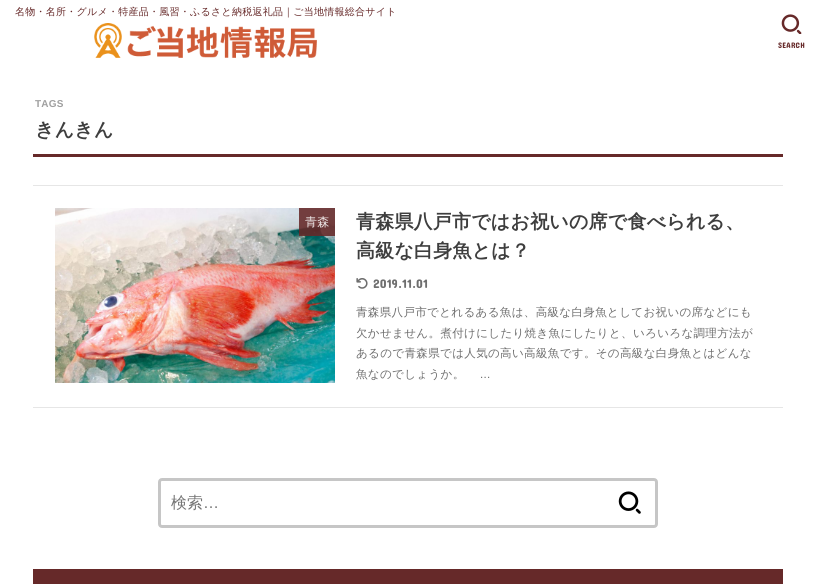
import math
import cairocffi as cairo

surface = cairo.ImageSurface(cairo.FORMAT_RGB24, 816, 584)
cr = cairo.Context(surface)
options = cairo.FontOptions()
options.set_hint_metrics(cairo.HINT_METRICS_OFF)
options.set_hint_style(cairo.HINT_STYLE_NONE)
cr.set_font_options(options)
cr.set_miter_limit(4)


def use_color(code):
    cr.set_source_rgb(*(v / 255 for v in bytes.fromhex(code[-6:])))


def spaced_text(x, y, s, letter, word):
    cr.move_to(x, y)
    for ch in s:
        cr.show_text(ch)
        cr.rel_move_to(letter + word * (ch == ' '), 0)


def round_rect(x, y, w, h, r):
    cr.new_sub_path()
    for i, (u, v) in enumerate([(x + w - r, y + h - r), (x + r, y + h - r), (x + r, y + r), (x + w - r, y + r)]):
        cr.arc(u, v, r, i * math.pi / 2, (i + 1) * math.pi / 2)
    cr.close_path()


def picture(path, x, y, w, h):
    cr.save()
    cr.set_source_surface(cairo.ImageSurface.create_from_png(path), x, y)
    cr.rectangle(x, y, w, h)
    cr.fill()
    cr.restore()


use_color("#ffffff")
cr.paint()
cr.select_font_face("WenQuanYi Zen Hei Medium")
cr.set_font_size(10)
use_color("#662929")
spaced_text(15, 15, "名物・名所・グルメ・特産品・風習・ふるさと納税返礼品｜ご当地情報総合サイト", 0.25, 0)
picture("img1.png", 94, 23, 223, 35)
picture("img2.png", 781, 14, 21, 20)
cr.select_font_face("Concert One")
cr.set_font_size(8)
spaced_text(778, 48, "SEARCH", 0.25, 0)
cr.rectangle(33, 154, 750, 3)
cr.fill()
cr.select_font_face("Liberation Sans", cairo.FONT_SLANT_NORMAL, cairo.FONT_WEIGHT_BOLD)
cr.set_font_size(10)
use_color("#9f9f9f")
spaced_text(35, 107, "TAGS", 0.25, 0)
cr.select_font_face("WenQuanYi Zen Hei", cairo.FONT_SLANT_NORMAL, cairo.FONT_WEIGHT_BOLD)
cr.set_font_size(18.95)
use_color("#3e3e3e")
spaced_text(35, 136, "きんきん", 0.25, 0)
use_color("#e6e6e6")
cr.rectangle(33, 185, 750, 1)
cr.fill()
cr.rectangle(33, 407, 750, 1)
cr.fill()
picture("img3.png", 55, 208, 280, 175)
cr.set_source_rgba(0.4, 0.161, 0.161, 0.88)
cr.rectangle(299, 208, 36, 28)
cr.fill()
cr.select_font_face("WenQuanYi Zen Hei Medium")
cr.set_font_size(12)
use_color("#eee8e8")
spaced_text(305, 226, "青森", 0.25, 0)
cr.select_font_face("WenQuanYi Zen Hei", cairo.FONT_SLANT_NORMAL, cairo.FONT_WEIGHT_BOLD)
cr.set_font_size(18.95)
use_color("#3e3e3e")
spaced_text(356, 228, "青森県八戸市ではお祝いの席で食べられる、", 0.25, 0)
spaced_text(356, 257, "高級な白身魚とは？", 0.25, 0)
picture("img4.png", 356, 278, 12, 11)
cr.select_font_face("Concert One")
cr.set_font_size(12.5)
use_color("#6e6e6e")
spaced_text(373, 288, "2019.11.01", 0.25, 0)
cr.select_font_face("WenQuanYi Zen Hei Medium")
cr.set_font_size(11.55)
spaced_text(356, 316, "青森県八戸市でとれるある魚は、高級な白身魚としてお祝いの席などにも", 0.3, 0)
spaced_text(356, 337, "欠かせません。煮付けにしたり焼き魚にしたりと、いろいろな調理方法が", 0.3, 0)
spaced_text(356, 357, "あるので青森県では人気の高い高級魚です。その高級な白身魚とはどんな", 0.3, 0)
spaced_text(356, 378, "魚なのでしょうか。", 0.3, 0)
cr.select_font_face("Liberation Sans")
spaced_text(480, 378, "...", 0.3, 0)
round_rect(159.5, 479.5, 497, 47, 2.5)
use_color("#c6c6c6")
cr.set_line_width(3)
cr.stroke()
cr.select_font_face("WenQuanYi Zen Hei Medium")
cr.set_font_size(16)
use_color("#757575")
cr.move_to(171, 508)
cr.show_text("検索")
cr.select_font_face("Liberation Sans")
cr.move_to(203, 508)
cr.show_text("…")
picture("img5.png", 618, 491, 23, 23)
use_color("#662929")
cr.rectangle(33, 569, 750, 15)
cr.fill()
surface.write_to_png("result.png")
